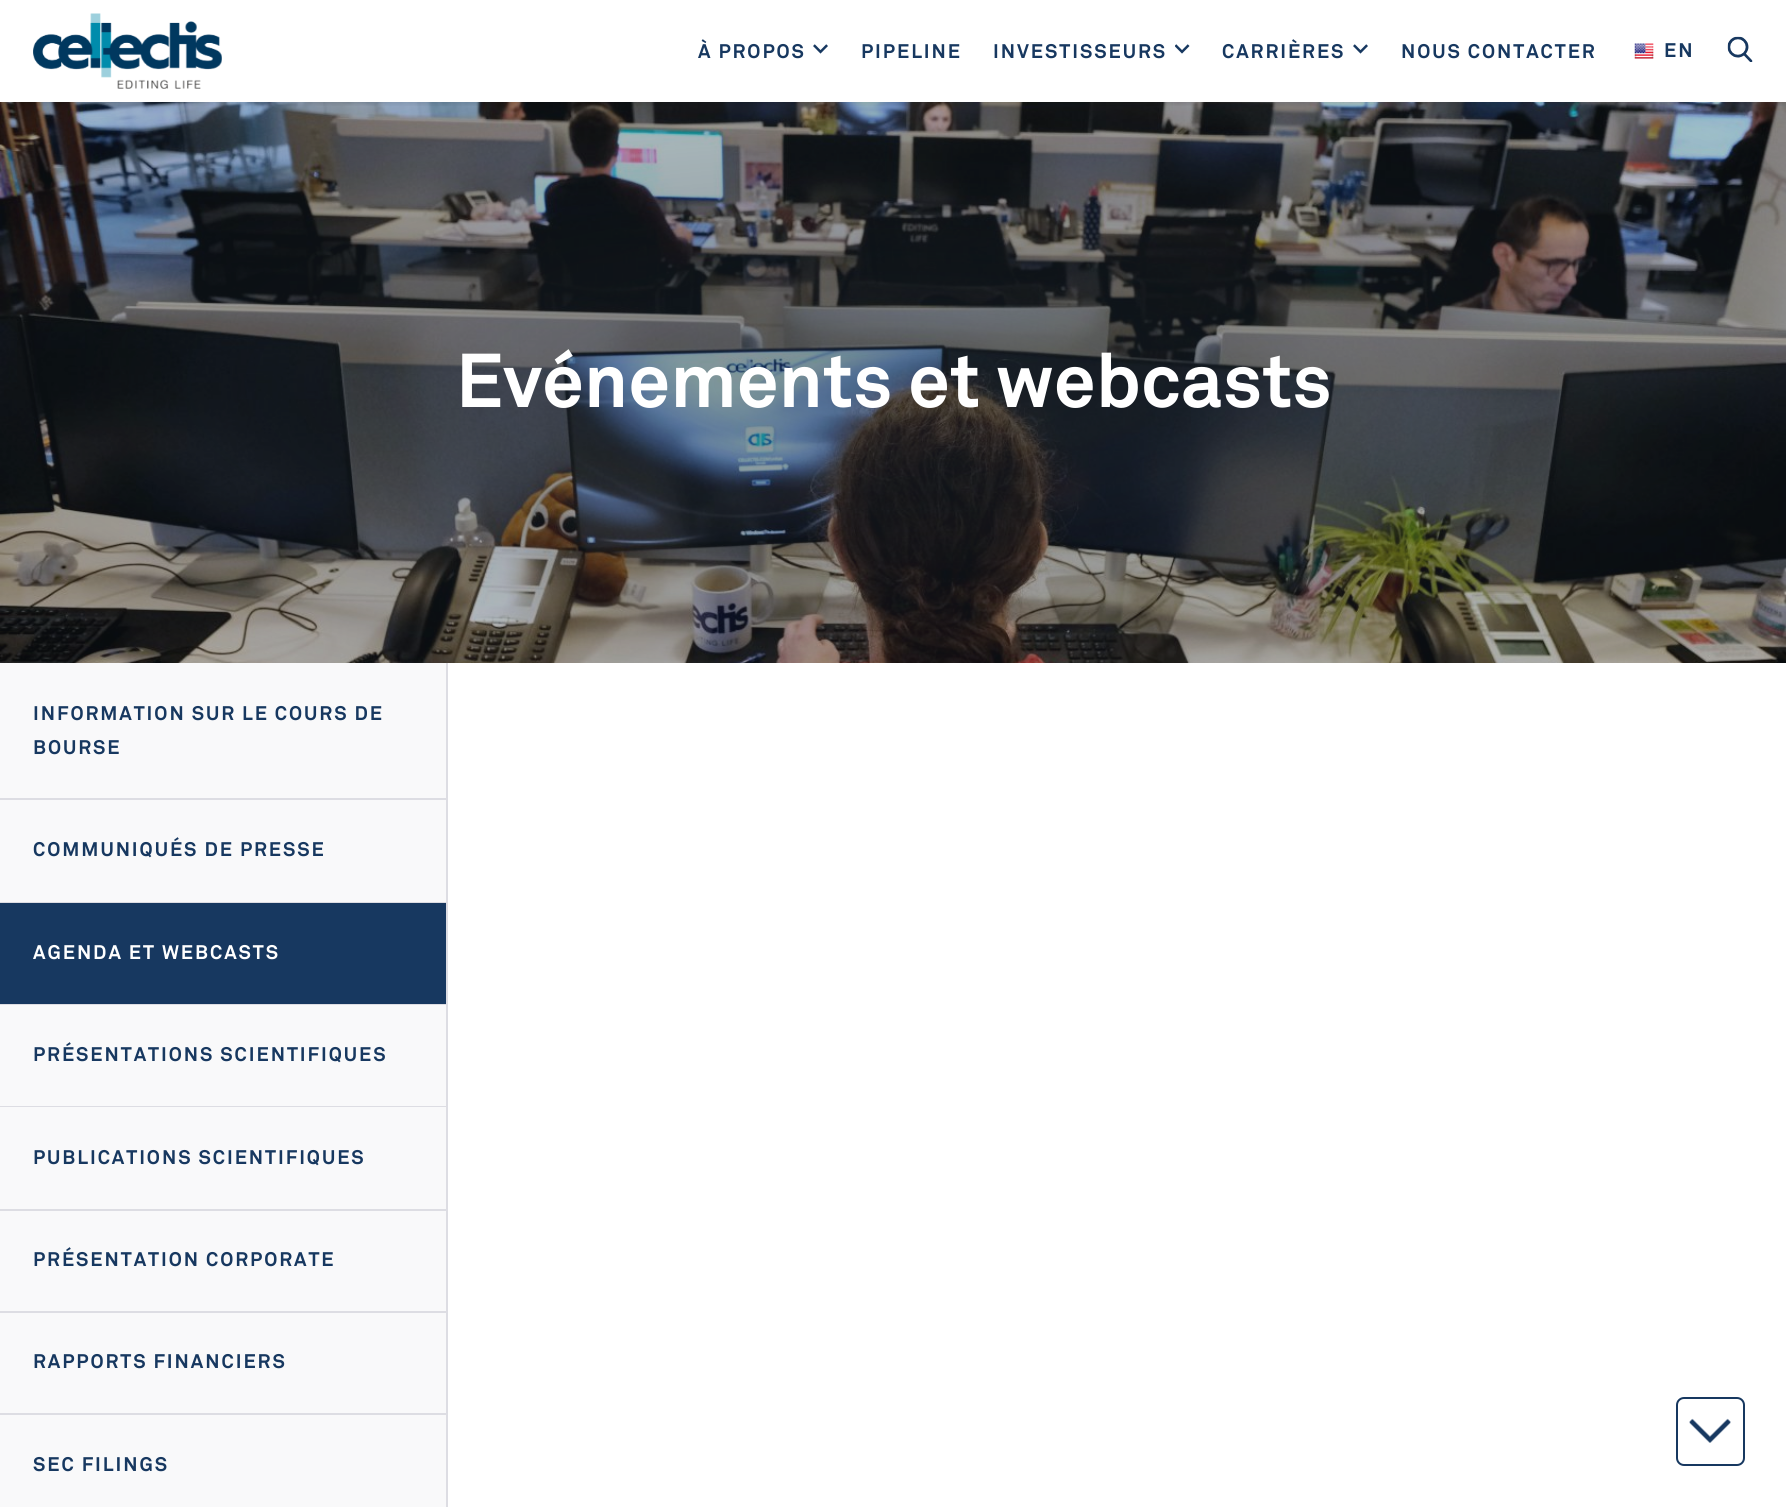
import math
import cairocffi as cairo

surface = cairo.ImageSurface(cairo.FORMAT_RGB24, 1786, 1507)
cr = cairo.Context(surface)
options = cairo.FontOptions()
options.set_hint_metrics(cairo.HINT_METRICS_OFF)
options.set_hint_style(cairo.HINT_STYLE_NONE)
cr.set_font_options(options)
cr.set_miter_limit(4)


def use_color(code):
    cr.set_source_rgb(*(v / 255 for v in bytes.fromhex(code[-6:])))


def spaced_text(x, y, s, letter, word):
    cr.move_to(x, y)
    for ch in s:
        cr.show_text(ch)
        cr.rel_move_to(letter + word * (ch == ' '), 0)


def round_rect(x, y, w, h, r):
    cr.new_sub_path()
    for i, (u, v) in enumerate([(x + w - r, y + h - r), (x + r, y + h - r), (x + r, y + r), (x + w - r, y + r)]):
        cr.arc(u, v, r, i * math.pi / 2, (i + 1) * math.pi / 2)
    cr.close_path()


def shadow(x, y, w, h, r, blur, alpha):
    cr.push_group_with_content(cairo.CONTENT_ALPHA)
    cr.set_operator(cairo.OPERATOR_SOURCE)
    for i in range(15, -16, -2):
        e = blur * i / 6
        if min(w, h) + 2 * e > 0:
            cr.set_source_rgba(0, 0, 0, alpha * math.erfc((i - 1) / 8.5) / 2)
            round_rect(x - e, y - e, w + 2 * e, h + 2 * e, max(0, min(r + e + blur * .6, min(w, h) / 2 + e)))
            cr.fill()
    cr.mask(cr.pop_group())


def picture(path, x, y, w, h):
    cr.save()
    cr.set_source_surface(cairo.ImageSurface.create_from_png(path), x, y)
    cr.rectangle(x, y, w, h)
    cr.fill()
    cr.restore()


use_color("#ffffff")
cr.paint()
picture("img6.png", 0, 102, 1786, 561)
cr.save()
cr.rectangle(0, 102, 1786, 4)
cr.clip()
use_color("#000000")
shadow(0, 3, 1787, 102, 0, 1.5, 0.07)
cr.restore()
picture("img1.png", 33, 13, 189, 76)
cr.select_font_face("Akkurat", cairo.FONT_SLANT_NORMAL, cairo.FONT_WEIGHT_BOLD)
cr.set_font_size(19.5)
use_color("#173860")
spaced_text(698, 58, "À PROPOS", 1.95, 0)
picture("img2.png", 813, 44, 15, 10)
spaced_text(861, 58, "PIPELINE", 1.95, 0)
spaced_text(993, 58, "INVESTISSEURS", 1.95, 0)
picture("img3.png", 1175, 44, 15, 10)
spaced_text(1222, 58, "CARRIÈRES", 1.95, 0)
picture("img2.png", 1353, 44, 15, 10)
spaced_text(1401, 58, "NOUS CONTACTER", 1.95, 0)
picture("img4.png", 1634, 43, 20, 16)
spaced_text(1664, 57, "EN", 1.95, 0)
picture("img5.png", 1727, 36, 26, 26)
cr.set_font_size(75.25)
use_color("#ffffff")
cr.move_to(456, 407)
cr.show_text("Evénements et webcasts")
use_color("#f9f9fa")
cr.rectangle(0, 663, 446, 844)
cr.fill()
use_color("#dddde3")
cr.rectangle(446, 663, 2, 844)
cr.fill()
cr.rectangle(0, 798, 446, 2)
cr.fill()
cr.set_font_size(19.5)
use_color("#173860")
spaced_text(33, 720, "INFORMATION SUR LE COURS DE", 1.95, 0)
spaced_text(33, 754, "BOURSE", 1.95, 0)
use_color("#dddde3")
cr.rectangle(0, 902, 446, 1)
cr.fill()
use_color("#173860")
spaced_text(33, 856, "COMMUNIQUÉS DE PRESSE", 1.95, 0)
cr.rectangle(0, 903, 446, 101)
cr.fill()
use_color("#dddde3")
cr.rectangle(0, 1004, 446, 1)
cr.fill()
use_color("#ffffff")
spaced_text(33, 959, "AGENDA ET WEBCASTS", 1.95, 0)
use_color("#dddde3")
cr.rectangle(0, 1106, 446, 1)
cr.fill()
use_color("#173860")
spaced_text(33, 1061, "PRÉSENTATIONS SCIENTIFIQUES", 1.95, 0)
use_color("#dddde3")
cr.rectangle(0, 1209, 446, 2)
cr.fill()
use_color("#173860")
spaced_text(33, 1164, "PUBLICATIONS SCIENTIFIQUES", 1.95, 0)
use_color("#dddde3")
cr.rectangle(0, 1311, 446, 2)
cr.fill()
use_color("#173860")
spaced_text(33, 1266, "PRÉSENTATION CORPORATE", 1.95, 0)
use_color("#dddde3")
cr.rectangle(0, 1413, 446, 2)
cr.fill()
use_color("#173860")
spaced_text(33, 1368, "RAPPORTS FINANCIERS", 1.95, 0)
spaced_text(33, 1471, "SEC FILINGS", 1.95, 0)
round_rect(1677, 1398, 67, 67, 7)
cr.stroke()
picture("img7.png", 1689, 1418, 42, 25)
surface.write_to_png("result.png")
